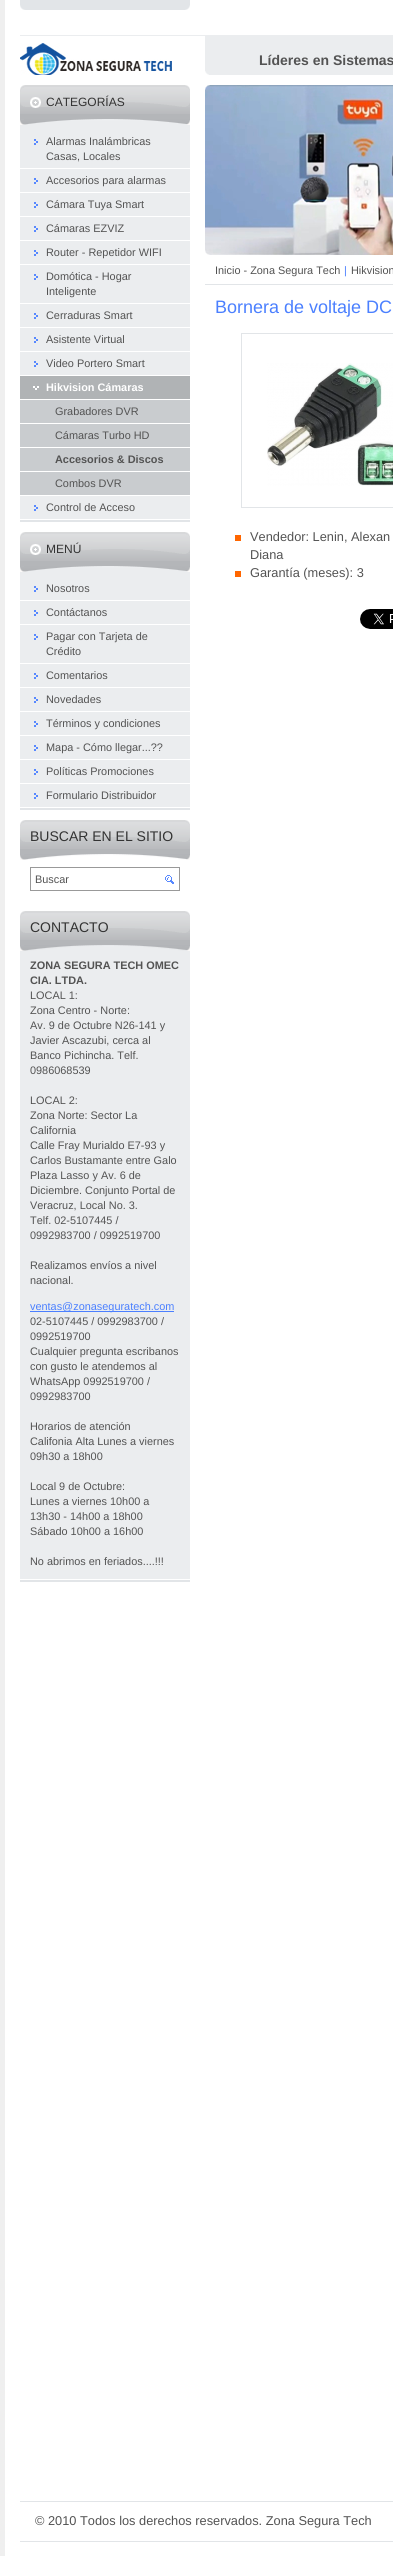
import math
import cairocffi as cairo

surface = cairo.ImageSurface(cairo.FORMAT_RGB24, 393, 2556)
cr = cairo.Context(surface)
options = cairo.FontOptions()
options.set_hint_metrics(cairo.HINT_METRICS_OFF)
options.set_hint_style(cairo.HINT_STYLE_NONE)
cr.set_font_options(options)
cr.set_miter_limit(4)


def use_color(code):
    cr.set_source_rgb(*(v / 255 for v in bytes.fromhex(code[-6:])))


def picture(path, x, y, w, h):
    cr.save()
    cr.set_source_surface(cairo.ImageSurface.create_from_png(path), x, y)
    cr.rectangle(x, y, w, h)
    cr.fill()
    cr.restore()


use_color("#ffffff")
cr.paint()
picture("img1.png", 20, 0, 170, 10)
use_color("#efefef")
cr.rectangle(0, 0, 5, 2556)
cr.fill()
picture("img2.png", 20, 35, 373, 6)
picture("img3.png", 20, 43, 152, 32)
use_color("#ebedef")
cr.rectangle(205, 41, 188, 34)
cr.fill()
picture("img4.png", 205, 71, 4, 4)
cr.select_font_face("Liberation Sans", cairo.FONT_SLANT_NORMAL, cairo.FONT_WEIGHT_BOLD)
cr.set_font_size(14)
use_color("#535353")
cr.move_to(259, 65)
cr.show_text("Líderes en Sistemas")
use_color("#e2e5e8")
cr.rectangle(20, 520, 170, 2)
cr.fill()
use_color("#ebedef")
cr.rectangle(20, 125, 170, 394)
cr.fill()
use_color("#b4b6b9")
cr.rectangle(20, 114, 170, 5)
cr.fill()
picture("img5.png", 20, 85, 170, 29)
picture("img6.png", 20, 119, 170, 6)
cr.select_font_face("Liberation Sans")
cr.set_font_size(12)
use_color("#333333")
cr.move_to(46, 106)
cr.show_text("CATEGORÍAS")
picture("img7.png", 34, 139, 4, 6)
use_color("#ffffff")
cr.rectangle(20, 168, 170, 1)
cr.fill()
cr.set_font_size(10.9)
use_color("#535353")
cr.move_to(46, 145)
cr.show_text("Alarmas Inalámbricas")
cr.move_to(46, 160)
cr.show_text("Casas, Locales")
picture("img7.png", 34, 178, 4, 6)
use_color("#ffffff")
cr.rectangle(20, 192, 170, 1)
cr.fill()
use_color("#535353")
cr.move_to(46, 184)
cr.show_text("Accesorios para alarmas")
picture("img7.png", 34, 202, 4, 6)
use_color("#ffffff")
cr.rectangle(20, 216, 170, 1)
cr.fill()
use_color("#535353")
cr.move_to(46, 208)
cr.show_text("Cámara Tuya Smart")
picture("img7.png", 34, 226, 4, 6)
use_color("#ffffff")
cr.rectangle(20, 240, 170, 1)
cr.fill()
use_color("#535353")
cr.move_to(46, 232)
cr.show_text("Cámaras EZVIZ")
picture("img7.png", 34, 250, 4, 6)
use_color("#ffffff")
cr.rectangle(20, 264, 170, 1)
cr.fill()
use_color("#535353")
cr.move_to(46, 256)
cr.show_text("Router - Repetidor WIFI")
picture("img7.png", 34, 274, 4, 6)
use_color("#ffffff")
cr.rectangle(20, 303, 170, 1)
cr.fill()
use_color("#535353")
cr.move_to(46, 280)
cr.show_text("Domótica - Hogar")
cr.move_to(46, 295)
cr.show_text("Inteligente")
picture("img7.png", 34, 313, 4, 6)
use_color("#ffffff")
cr.rectangle(20, 327, 170, 1)
cr.fill()
use_color("#535353")
cr.move_to(46, 319)
cr.show_text("Cerraduras Smart")
picture("img7.png", 34, 337, 4, 6)
use_color("#ffffff")
cr.rectangle(20, 351, 170, 1)
cr.fill()
use_color("#535353")
cr.move_to(46, 343)
cr.show_text("Asistente Virtual")
picture("img7.png", 34, 361, 4, 6)
use_color("#ffffff")
cr.rectangle(20, 375, 170, 1)
cr.fill()
use_color("#535353")
cr.move_to(46, 367)
cr.show_text("Video Portero Smart")
use_color("#b0b3b5")
cr.rectangle(20, 376, 170, 23)
cr.fill()
picture("img8.png", 33, 386, 6, 4)
use_color("#ffffff")
cr.rectangle(20, 399, 170, 1)
cr.fill()
cr.select_font_face("Liberation Sans", cairo.FONT_SLANT_NORMAL, cairo.FONT_WEIGHT_BOLD)
cr.move_to(46, 391)
cr.show_text("Hikvision Cámaras")
use_color("#c9cccf")
cr.rectangle(20, 400, 170, 95)
cr.fill()
use_color("#ffffff")
cr.rectangle(20, 423, 170, 1)
cr.fill()
cr.select_font_face("Liberation Sans")
use_color("#535353")
cr.move_to(55, 415)
cr.show_text("Grabadores DVR")
use_color("#ffffff")
cr.rectangle(20, 447, 170, 1)
cr.fill()
use_color("#535353")
cr.move_to(55, 439)
cr.show_text("Cámaras Turbo HD")
use_color("#ffffff")
cr.rectangle(20, 471, 170, 1)
cr.fill()
cr.select_font_face("Liberation Sans", cairo.FONT_SLANT_NORMAL, cairo.FONT_WEIGHT_BOLD)
use_color("#535353")
cr.move_to(55, 463)
cr.show_text("Accesorios & Discos")
use_color("#ffffff")
cr.rectangle(20, 495, 170, 1)
cr.fill()
cr.select_font_face("Liberation Sans")
use_color("#535353")
cr.move_to(55, 487)
cr.show_text("Combos DVR")
picture("img7.png", 34, 505, 4, 6)
cr.move_to(46, 511)
cr.show_text("Control de Acceso")
use_color("#e2e5e8")
cr.rectangle(20, 808, 170, 2)
cr.fill()
use_color("#ebedef")
cr.rectangle(20, 572, 170, 235)
cr.fill()
use_color("#b4b6b9")
cr.rectangle(20, 561, 170, 5)
cr.fill()
picture("img5.png", 20, 532, 170, 29)
picture("img6.png", 20, 566, 170, 6)
cr.set_font_size(12)
use_color("#333333")
cr.move_to(46, 553)
cr.show_text("MENÚ")
picture("img7.png", 34, 586, 4, 6)
use_color("#ffffff")
cr.rectangle(20, 600, 170, 1)
cr.fill()
cr.set_font_size(10.9)
use_color("#535353")
cr.move_to(46, 592)
cr.show_text("Nosotros")
picture("img7.png", 34, 610, 4, 6)
use_color("#ffffff")
cr.rectangle(20, 624, 170, 1)
cr.fill()
use_color("#535353")
cr.move_to(46, 616)
cr.show_text("Contáctanos")
picture("img7.png", 34, 634, 4, 6)
use_color("#ffffff")
cr.rectangle(20, 663, 170, 1)
cr.fill()
use_color("#535353")
cr.move_to(46, 640)
cr.show_text("Pagar con Tarjeta de")
cr.move_to(46, 655)
cr.show_text("Crédito")
picture("img7.png", 34, 673, 4, 6)
use_color("#ffffff")
cr.rectangle(20, 687, 170, 1)
cr.fill()
use_color("#535353")
cr.move_to(46, 679)
cr.show_text("Comentarios")
picture("img7.png", 34, 697, 4, 6)
use_color("#ffffff")
cr.rectangle(20, 711, 170, 1)
cr.fill()
use_color("#535353")
cr.move_to(46, 703)
cr.show_text("Novedades")
picture("img7.png", 34, 721, 4, 6)
use_color("#ffffff")
cr.rectangle(20, 735, 170, 1)
cr.fill()
use_color("#535353")
cr.move_to(46, 727)
cr.show_text("Términos y condiciones")
picture("img7.png", 34, 745, 4, 6)
use_color("#ffffff")
cr.rectangle(20, 759, 170, 1)
cr.fill()
use_color("#535353")
cr.move_to(46, 751)
cr.show_text("Mapa - Cómo llegar...??")
picture("img7.png", 34, 769, 4, 6)
use_color("#ffffff")
cr.rectangle(20, 783, 170, 1)
cr.fill()
use_color("#535353")
cr.move_to(46, 775)
cr.show_text("Políticas Promociones")
picture("img7.png", 34, 793, 4, 6)
cr.move_to(46, 799)
cr.show_text("Formulario Distribuidor")
use_color("#b4b6b9")
cr.rectangle(20, 849, 170, 6)
cr.fill()
picture("img9.png", 20, 820, 170, 29)
picture("img10.png", 20, 854, 170, 6)
cr.set_font_size(14)
use_color("#333333")
cr.move_to(30, 841)
cr.show_text("BUSCAR EN EL SITIO")
cr.rectangle(30.5, 867.5, 149, 23)
use_color("#999999")
cr.set_line_width(1)
cr.stroke()
cr.set_font_size(10.9)
use_color("#535353")
cr.move_to(35, 883)
cr.show_text("Buscar")
picture("img11.png", 165, 875, 9, 9)
use_color("#e2e5e8")
cr.rectangle(20, 1580, 170, 2)
cr.fill()
use_color("#ebedef")
cr.rectangle(20, 951, 170, 628)
cr.fill()
use_color("#b4b6b9")
cr.rectangle(20, 940, 170, 6)
cr.fill()
picture("img12.png", 20, 911, 170, 29)
picture("img13.png", 20, 945, 170, 6)
cr.set_font_size(14)
use_color("#333333")
cr.move_to(30, 932)
cr.show_text("CONTACTO")
cr.select_font_face("Liberation Sans", cairo.FONT_SLANT_NORMAL, cairo.FONT_WEIGHT_BOLD)
cr.set_font_size(10.9)
use_color("#535353")
cr.move_to(30, 969)
cr.show_text("ZONA SEGURA TECH OMEC")
cr.move_to(30, 984)
cr.show_text("CIA. LTDA.")
cr.select_font_face("Liberation Sans")
cr.move_to(30, 999)
cr.show_text("LOCAL 1:")
cr.move_to(30, 1014)
cr.show_text("Zona Centro - Norte:")
cr.move_to(30, 1029)
cr.show_text("Av. 9 de Octubre N26-141 y")
cr.move_to(30, 1044)
cr.show_text("Javier Ascazubi, cerca al")
cr.move_to(30, 1059)
cr.show_text("Banco Pichincha. Telf.")
cr.move_to(30, 1074)
cr.show_text("0986068539")
cr.move_to(30, 1104)
cr.show_text("LOCAL 2:")
cr.move_to(30, 1119)
cr.show_text("Zona Norte: Sector La")
cr.move_to(30, 1134)
cr.show_text("California")
cr.move_to(30, 1149)
cr.show_text("Calle Fray Murialdo E7-93 y")
cr.move_to(30, 1164)
cr.show_text("Carlos Bustamante entre Galo")
cr.move_to(30, 1179)
cr.show_text("Plaza Lasso y Av. 6 de")
cr.move_to(30, 1194)
cr.show_text("Diciembre. Conjunto Portal de")
cr.move_to(30, 1209)
cr.show_text("Veracruz, Local No. 3.")
cr.move_to(30, 1224)
cr.show_text("Telf. 02-5107445 /")
cr.move_to(30, 1239)
cr.show_text("0992983700 / 0992519700")
cr.move_to(30, 1269)
cr.show_text("Realizamos envíos a nivel")
cr.move_to(30, 1284)
cr.show_text("nacional.")
use_color("#4b7fff")
cr.rectangle(30, 1311, 144, 1)
cr.fill()
use_color("#4b80ff")
cr.move_to(30, 1310)
cr.show_text("ventas@zonaseguratech.com")
use_color("#535353")
cr.move_to(30, 1325)
cr.show_text("02-5107445 / 0992983700 /")
cr.move_to(30, 1340)
cr.show_text("0992519700")
cr.move_to(30, 1355)
cr.show_text("Cualquier pregunta escribanos")
cr.move_to(30, 1370)
cr.show_text("con gusto le atendemos al")
cr.move_to(30, 1385)
cr.show_text("WhatsApp 0992519700 /")
cr.move_to(30, 1400)
cr.show_text("0992983700")
cr.move_to(30, 1430)
cr.show_text("Horarios de atención")
cr.move_to(30, 1445)
cr.show_text("Califonia Alta Lunes a viernes")
cr.move_to(30, 1460)
cr.show_text("09h30 a 18h00")
cr.move_to(30, 1490)
cr.show_text("Local 9 de Octubre:")
cr.move_to(30, 1505)
cr.show_text("Lunes a viernes 10h00 a")
cr.move_to(30, 1520)
cr.show_text("13h30 - 14h00 a 18h00")
cr.move_to(30, 1535)
cr.show_text("Sábado 10h00 a 16h00")
cr.move_to(30, 1565)
cr.show_text("No abrimos en feriados....!!!")
picture("img14.png", 205, 85, 188, 170)
picture("img15.png", 205, 85, 5, 170)
use_color("#e2e5e8")
cr.rectangle(205, 284, 188, 1)
cr.fill()
use_color("#535353")
cr.move_to(215, 274)
cr.show_text("Inicio - Zona Segura Tech")
use_color("#4b80ff")
cr.move_to(344, 274)
cr.show_text("|")
use_color("#535353")
cr.move_to(351, 274)
cr.show_text("Hikvision")
cr.set_font_size(18)
use_color("#4b80ff")
cr.move_to(215, 313)
cr.show_text("Bornera de voltaje DC")
cr.rectangle(241.5, 333.5, 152, 174)
use_color("#e2e5e8")
cr.stroke()
picture("img16.png", 267, 363, 126, 123)
use_color("#ff6600")
cr.rectangle(235, 535, 6, 6)
cr.fill()
cr.set_font_size(12.8)
use_color("#535353")
cr.move_to(250, 541)
cr.show_text("Vendedor: Lenin, Alexan")
cr.move_to(250, 559)
cr.show_text("Diana")
use_color("#ff6600")
cr.rectangle(235, 571, 6, 6)
cr.fill()
use_color("#535353")
cr.move_to(250, 577)
cr.show_text("Garantía (meses): 3")
picture("img17.png", 360, 609, 33, 20)
use_color("#e2e5e8")
cr.rectangle(20, 2501, 373, 1)
cr.fill()
cr.rectangle(20, 2541, 373, 1)
cr.fill()
use_color("#535353")
cr.move_to(35, 2525)
cr.show_text("© 2010 Todos los derechos reservados. Zona Segura Tech")
surface.write_to_png("result.png")
